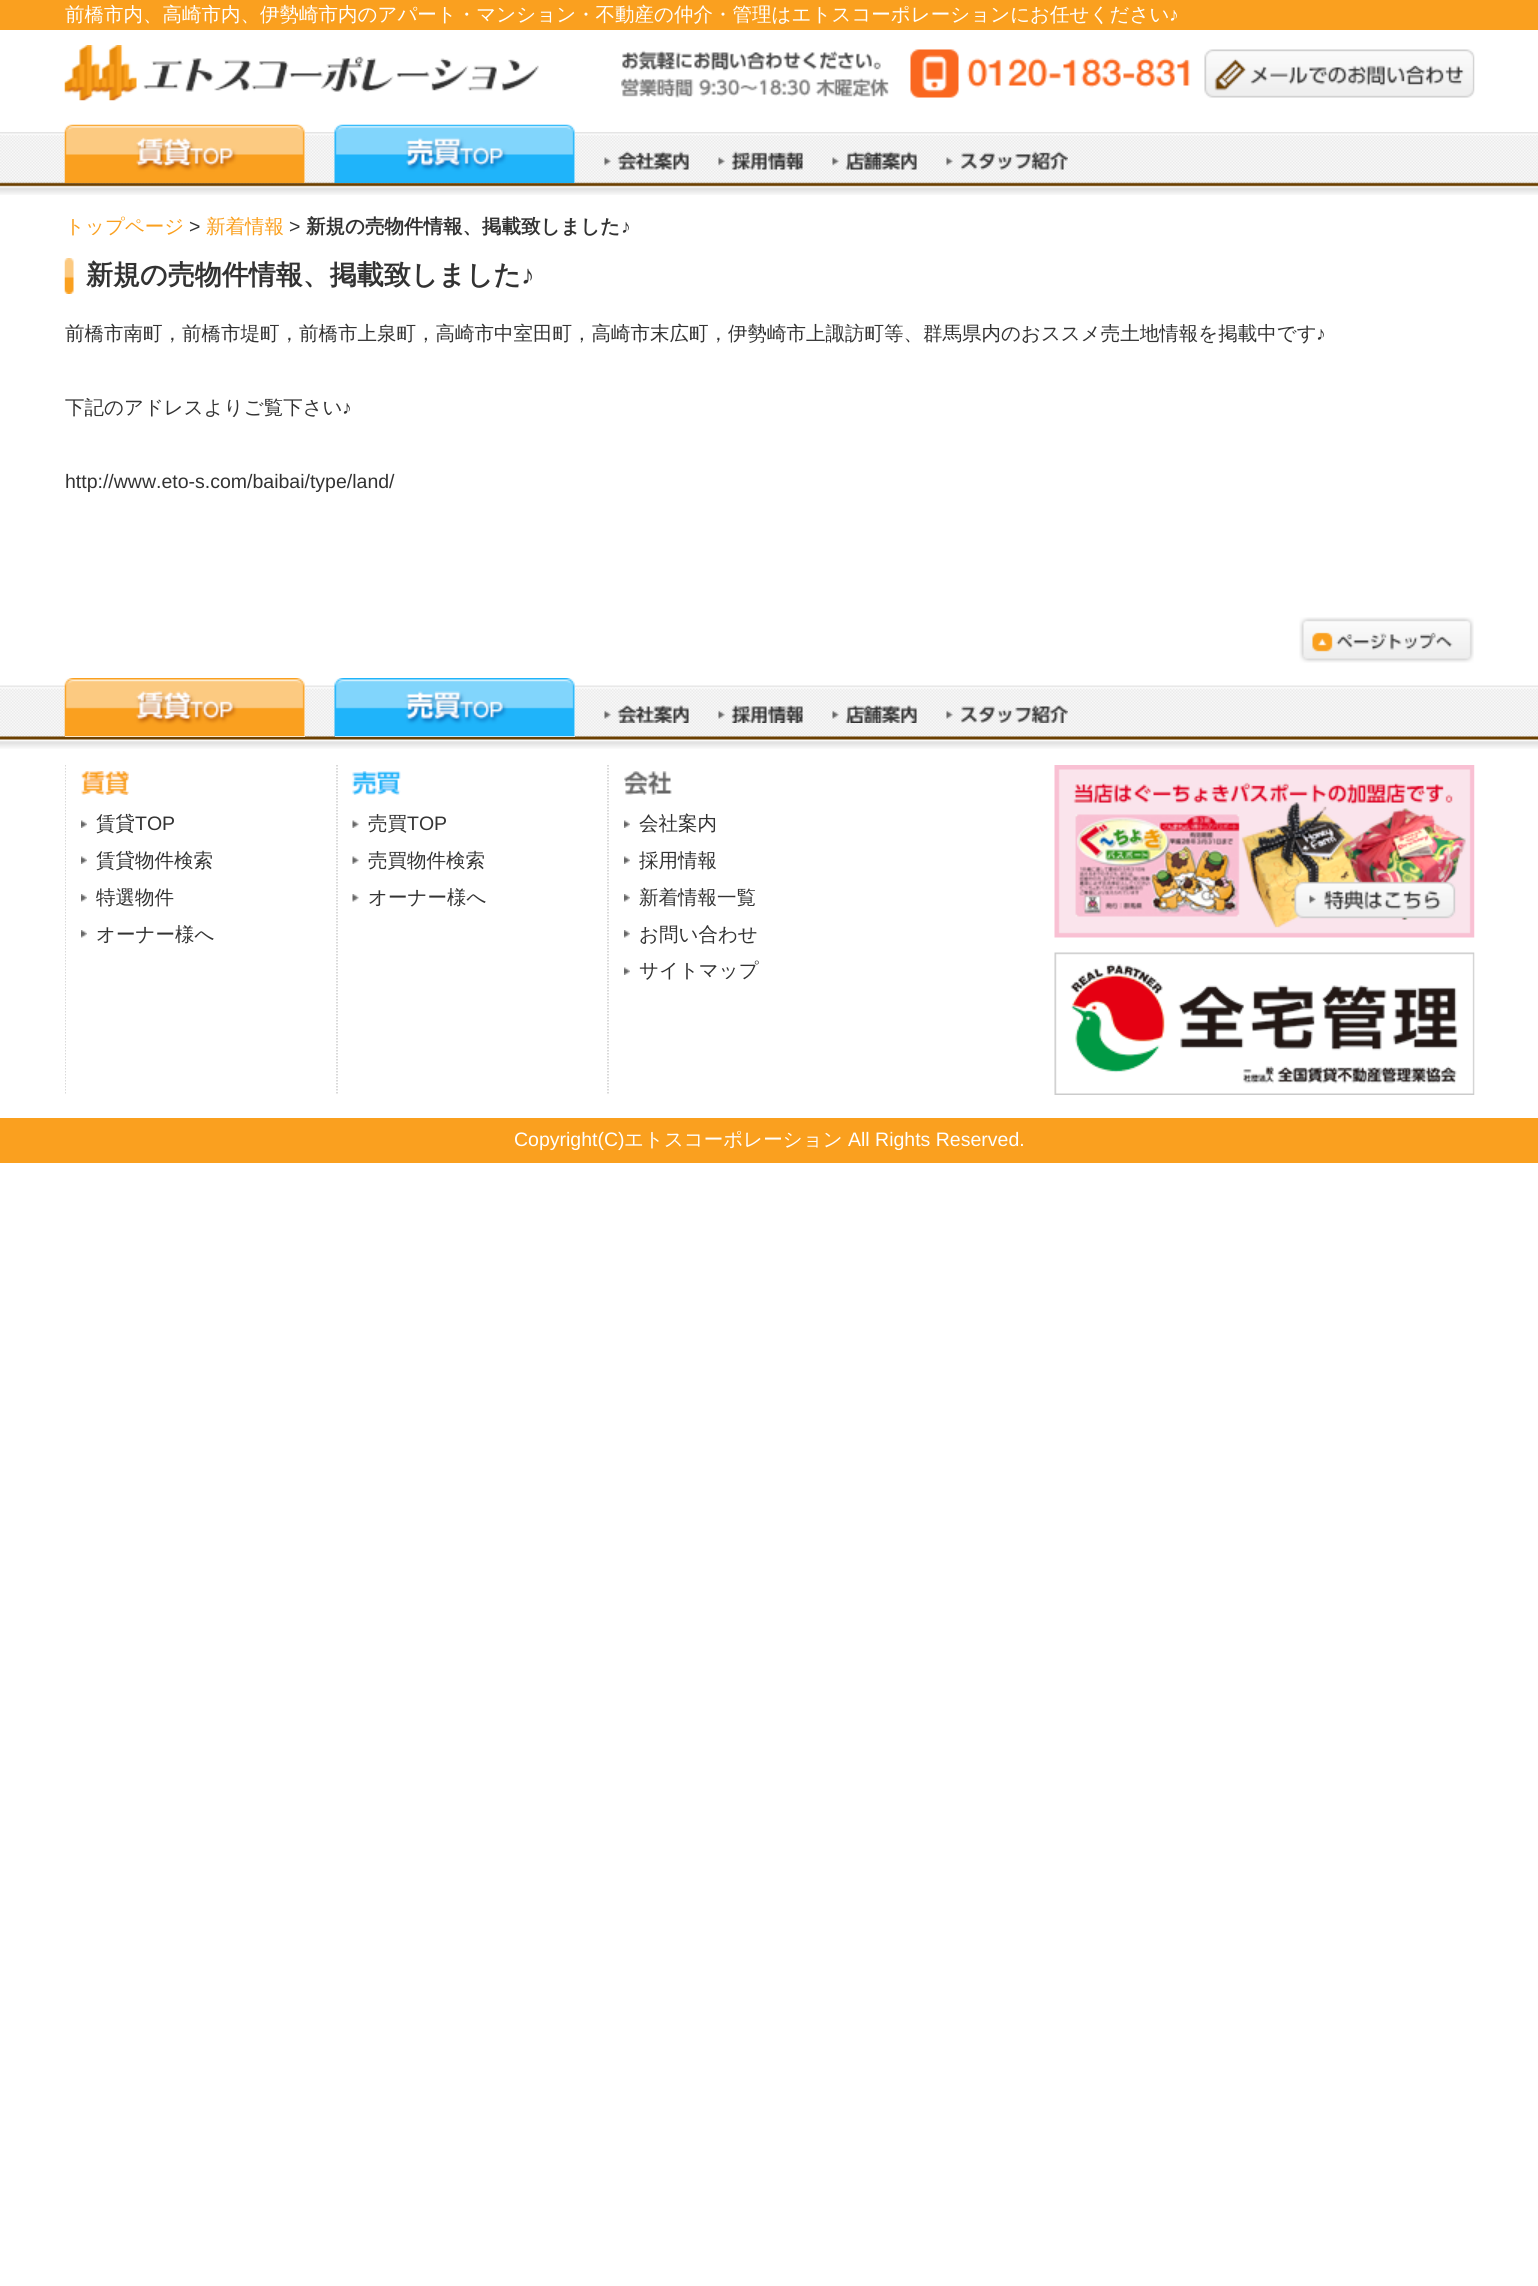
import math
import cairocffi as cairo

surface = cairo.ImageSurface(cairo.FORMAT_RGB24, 1538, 2286)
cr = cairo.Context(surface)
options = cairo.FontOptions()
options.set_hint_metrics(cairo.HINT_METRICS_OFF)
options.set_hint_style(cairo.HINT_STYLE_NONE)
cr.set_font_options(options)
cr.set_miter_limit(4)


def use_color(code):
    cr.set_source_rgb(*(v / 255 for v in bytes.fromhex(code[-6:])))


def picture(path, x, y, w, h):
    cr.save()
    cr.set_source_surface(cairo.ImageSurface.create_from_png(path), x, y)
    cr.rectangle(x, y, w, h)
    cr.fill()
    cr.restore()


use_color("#ffffff")
cr.paint()
use_color("#faa01f")
cr.rectangle(0, 0, 1538, 30)
cr.fill()
cr.select_font_face("WenQuanYi Zen Hei Medium")
cr.set_font_size(19.5)
use_color("#ffffff")
cr.move_to(65, 21)
cr.show_text("前橋市内、高崎市内、伊勢崎市内のアパート・マンション・不動産の仲介・管理はエトスコーポレーションにお任せください")
cr.select_font_face("Liberation Sans")
cr.move_to(1169, 21)
cr.show_text("♪")
picture("img1.png", 64, 45, 475, 56)
picture("img2.png", 621, 49, 569, 49)
picture("img3.png", 1204, 49, 271, 49)
picture("img4.png", 0, 132, 1538, 63)
cr.rectangle(304, 125, 1, 58)
cr.fill()
picture("img5.png", 64, 124, 241, 59)
cr.rectangle(574, 125, 1, 58)
cr.fill()
picture("img6.png", 334, 124, 241, 59)
picture("img7.png", 604, 151, 85, 19)
picture("img8.png", 718, 151, 85, 19)
picture("img9.png", 832, 151, 85, 19)
picture("img10.png", 946, 151, 122, 19)
cr.select_font_face("WenQuanYi Zen Hei Medium")
use_color("#faa01f")
cr.move_to(65, 233)
cr.show_text("トップページ")
cr.select_font_face("Liberation Sans")
use_color("#333333")
cr.move_to(189, 233)
cr.show_text(">")
cr.select_font_face("WenQuanYi Zen Hei Medium")
use_color("#faa01f")
cr.move_to(206, 233)
cr.show_text("新着情報")
cr.select_font_face("Liberation Sans")
use_color("#333333")
cr.move_to(289, 233)
cr.show_text(">")
cr.select_font_face("WenQuanYi Zen Hei", cairo.FONT_SLANT_NORMAL, cairo.FONT_WEIGHT_BOLD)
cr.move_to(306, 233)
cr.show_text("新規の売物件情報、掲載致しました")
cr.select_font_face("Liberation Sans", cairo.FONT_SLANT_NORMAL, cairo.FONT_WEIGHT_BOLD)
cr.move_to(621, 233)
cr.show_text("♪")
picture("img11.png", 64, 258, 10, 36)
cr.select_font_face("WenQuanYi Zen Hei", cairo.FONT_SLANT_NORMAL, cairo.FONT_WEIGHT_BOLD)
cr.set_font_size(27)
cr.move_to(86, 284)
cr.show_text("新規の売物件情報、掲載致しました")
cr.select_font_face("Liberation Sans", cairo.FONT_SLANT_NORMAL, cairo.FONT_WEIGHT_BOLD)
cr.move_to(521, 284)
cr.show_text("♪")
cr.select_font_face("WenQuanYi Zen Hei Medium")
cr.set_font_size(19.5)
cr.move_to(65, 340)
cr.show_text("前橋市南町，前橋市堤町，前橋市上泉町，高崎市中室田町，高崎市末広町，伊勢崎市上諏訪町等、群馬県内のおススメ売土地情報を掲載中です")
cr.select_font_face("Liberation Sans")
cr.move_to(1316, 340)
cr.show_text("♪")
cr.select_font_face("WenQuanYi Zen Hei Medium")
cr.move_to(65, 414)
cr.show_text("下記のアドレスよりご覧下さい")
cr.select_font_face("Liberation Sans")
cr.move_to(342, 414)
cr.show_text("♪")
cr.move_to(65, 488)
cr.show_text("http://www.eto-s.com/baibai/type/land/")
picture("img12.png", 1299, 617, 175, 46)
picture("img13.png", 0, 685, 1538, 64)
use_color("#ffffff")
cr.rectangle(65, 685, 240, 52)
cr.fill()
picture("img14.png", 64, 678, 241, 59)
cr.rectangle(335, 685, 240, 52)
cr.fill()
picture("img15.png", 334, 678, 241, 59)
picture("img16.png", 604, 705, 85, 18)
picture("img17.png", 718, 705, 85, 18)
picture("img18.png", 832, 705, 85, 18)
picture("img19.png", 946, 705, 122, 18)
cr.save()
cr.rectangle(65, 765, 1410, 353)
cr.clip()
cr.new_path()
cr.move_to(65, 765)
cr.line_to(65, 1095)
use_color("#cccccc")
cr.set_line_width(1.5)
cr.set_dash([1.5, 1.5])
cr.stroke()
cr.restore()
picture("img20.png", 81, 771, 48, 24)
picture("img21.png", 81, 820, 6, 8)
cr.select_font_face("WenQuanYi Zen Hei Medium")
use_color("#333333")
cr.move_to(96, 830)
cr.show_text("賃貸")
cr.select_font_face("Liberation Sans")
cr.move_to(135, 830)
cr.show_text("TOP")
picture("img21.png", 81, 856, 6, 8)
cr.select_font_face("WenQuanYi Zen Hei Medium")
cr.move_to(96, 867)
cr.show_text("賃貸物件検索")
picture("img22.png", 81, 894, 6, 8)
cr.move_to(96, 904)
cr.show_text("特選物件")
picture("img22.png", 81, 930, 6, 8)
cr.move_to(96, 941)
cr.show_text("オーナー様へ")
cr.new_path()
cr.move_to(337, 765)
cr.line_to(337, 1095)
use_color("#cccccc")
cr.set_line_width(1.5)
cr.set_dash([1.5, 1.5])
cr.stroke()
picture("img23.png", 352, 771, 49, 24)
picture("img24.png", 352, 820, 7, 8)
use_color("#333333")
cr.move_to(368, 830)
cr.show_text("売買")
cr.select_font_face("Liberation Sans")
cr.move_to(407, 830)
cr.show_text("TOP")
picture("img24.png", 352, 856, 7, 8)
cr.select_font_face("WenQuanYi Zen Hei Medium")
cr.move_to(368, 867)
cr.show_text("売買物件検索")
picture("img25.png", 352, 894, 7, 8)
cr.move_to(368, 904)
cr.show_text("オーナー様へ")
cr.new_path()
cr.move_to(608, 765)
cr.line_to(608, 1095)
use_color("#cccccc")
cr.stroke()
picture("img26.png", 624, 771, 48, 24)
picture("img21.png", 624, 820, 6, 8)
use_color("#333333")
cr.move_to(639, 830)
cr.show_text("会社案内")
picture("img21.png", 624, 856, 6, 8)
cr.move_to(639, 867)
cr.show_text("採用情報")
picture("img22.png", 624, 894, 6, 8)
cr.move_to(639, 904)
cr.show_text("新着情報一覧")
picture("img22.png", 624, 930, 6, 8)
cr.move_to(639, 941)
cr.show_text("お問い合わせ")
picture("img21.png", 624, 967, 6, 8)
cr.move_to(639, 977)
cr.show_text("サイトマップ")
picture("img27.png", 1054, 765, 421, 173)
picture("img28.png", 1054, 952, 421, 143)
use_color("#faa01f")
cr.rectangle(0, 1118, 1538, 45)
cr.fill()
cr.select_font_face("Liberation Sans")
use_color("#ffffff")
cr.move_to(514, 1146)
cr.show_text("Copyright(C)")
cr.select_font_face("WenQuanYi Zen Hei Medium")
cr.move_to(624, 1146)
cr.show_text("エトスコーポレーション")
cr.select_font_face("Liberation Sans")
cr.move_to(848, 1146)
cr.show_text("All Rights Reserved.")
surface.write_to_png("result.png")
